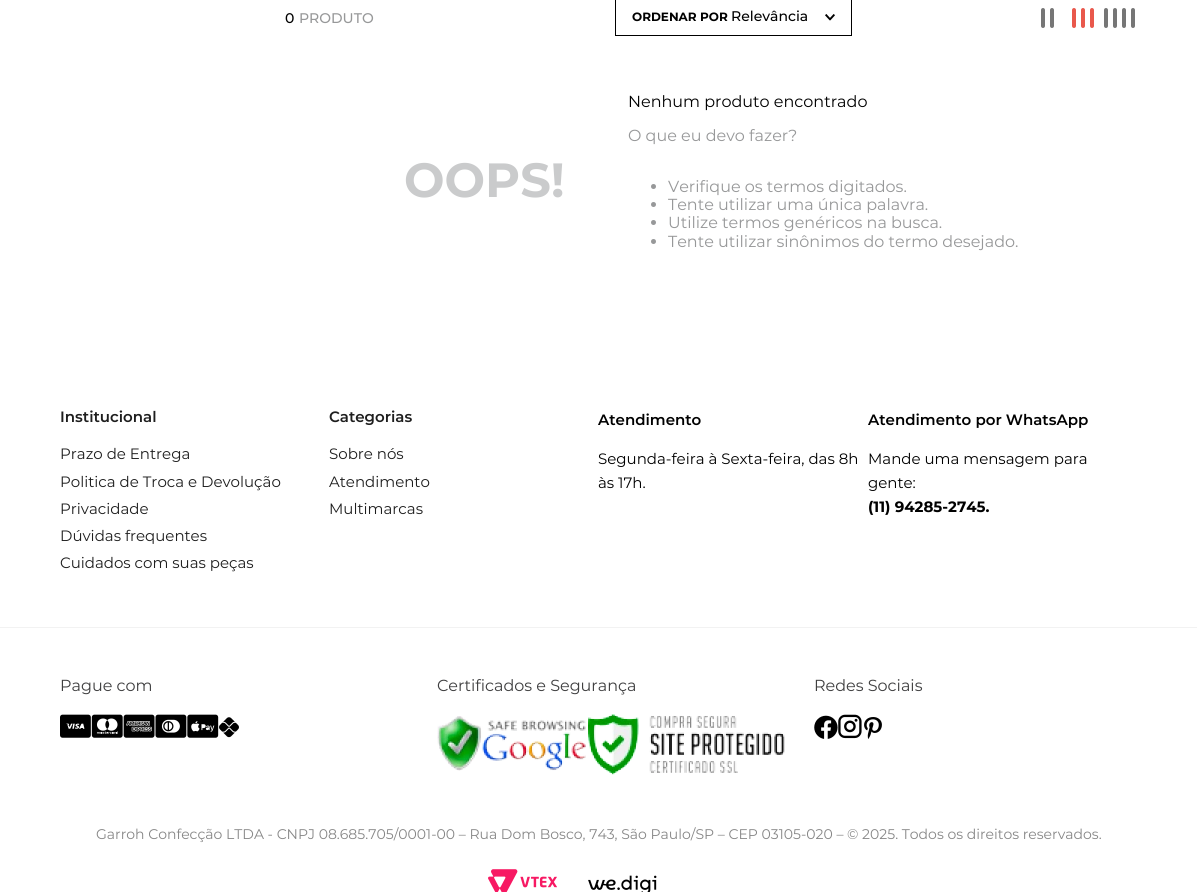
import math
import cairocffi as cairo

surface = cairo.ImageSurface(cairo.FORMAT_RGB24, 1197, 892)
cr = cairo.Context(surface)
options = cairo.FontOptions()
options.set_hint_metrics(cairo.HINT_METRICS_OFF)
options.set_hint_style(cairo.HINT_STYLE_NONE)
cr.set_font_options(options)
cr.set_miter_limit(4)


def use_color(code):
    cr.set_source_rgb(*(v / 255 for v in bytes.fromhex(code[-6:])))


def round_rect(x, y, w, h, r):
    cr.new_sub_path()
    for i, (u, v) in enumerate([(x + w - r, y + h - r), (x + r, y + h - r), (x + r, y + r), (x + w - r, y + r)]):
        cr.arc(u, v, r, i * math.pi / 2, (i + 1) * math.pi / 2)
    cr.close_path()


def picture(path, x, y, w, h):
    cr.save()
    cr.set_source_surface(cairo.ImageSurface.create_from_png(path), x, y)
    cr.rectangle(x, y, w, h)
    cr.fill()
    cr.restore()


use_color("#ffffff")
cr.paint()
cr.select_font_face("Montserrat Medium")
cr.set_font_size(14)
use_color("#000000")
cr.move_to(285, 23)
cr.show_text("0")
use_color("#979899")
cr.move_to(299, 23)
cr.show_text("PRODUTO")
cr.rectangle(615.5, -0.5, 236, 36)
use_color("#000000")
cr.set_line_width(1)
cr.stroke()
cr.select_font_face("Montserrat", cairo.FONT_SLANT_NORMAL, cairo.FONT_WEIGHT_BOLD)
cr.set_font_size(12)
cr.move_to(632, 21)
cr.show_text("ORDENAR POR")
cr.select_font_face("Montserrat Medium")
cr.set_font_size(14)
cr.move_to(731, 21)
cr.show_text("Relevância")
picture("img1.png", 825, 14, 10, 7)
use_color("#767676")
round_rect(1041, 8, 4, 20, 2)
cr.fill()
round_rect(1050, 8, 4, 20, 2)
cr.fill()
use_color("#e9584c")
round_rect(1072, 8, 4, 20, 2)
cr.fill()
round_rect(1081, 8, 4, 20, 2)
cr.fill()
round_rect(1090, 8, 4, 20, 2)
cr.fill()
use_color("#767676")
round_rect(1104, 8, 4, 20, 2)
cr.fill()
round_rect(1113, 8, 4, 20, 2)
cr.fill()
round_rect(1122, 8, 4, 20, 2)
cr.fill()
round_rect(1131, 8, 4, 20, 2)
cr.fill()
cr.select_font_face("Montserrat", cairo.FONT_SLANT_NORMAL, cairo.FONT_WEIGHT_BOLD)
cr.set_font_size(48)
use_color("#cacbcc")
cr.move_to(404, 197)
cr.show_text("OOPS!")
cr.select_font_face("Montserrat")
cr.set_font_size(16)
use_color("#000000")
cr.move_to(628, 107)
cr.show_text("Nenhum produto encontrado")
use_color("#979899")
cr.move_to(628, 141)
cr.show_text("O que eu devo fazer?")
cr.new_path()
cr.arc(653.5, 186.5, 2.5, 0, 2 * math.pi)
cr.fill()
cr.move_to(668, 192)
cr.show_text("Verifique os termos digitados.")
cr.new_path()
cr.arc(653.5, 204.5, 2.5, 0, 2 * math.pi)
cr.fill()
cr.move_to(668, 210)
cr.show_text("Tente utilizar uma única palavra.")
cr.new_path()
cr.arc(653.5, 222.5, 2.5, 0, 2 * math.pi)
cr.fill()
cr.move_to(668, 228)
cr.show_text("Utilize termos genéricos na busca.")
cr.new_path()
cr.arc(653.5, 241.5, 2.5, 0, 2 * math.pi)
cr.fill()
cr.move_to(668, 247)
cr.show_text("Tente utilizar sinônimos do termo desejado.")
use_color("#f2f2f2")
cr.rectangle(0, 627, 1197, 1)
cr.fill()
cr.select_font_face("Montserrat SemiBold")
cr.set_font_size(15)
use_color("#1e1e1e")
cr.move_to(60, 422)
cr.show_text("Institucional")
cr.select_font_face("Montserrat")
cr.move_to(60, 459)
cr.show_text("Prazo de Entrega")
cr.move_to(60, 487)
cr.show_text("Politica de Troca e Devolução")
cr.move_to(60, 514)
cr.show_text("Privacidade")
cr.move_to(60, 541)
cr.show_text("Dúvidas frequentes")
cr.move_to(60, 568)
cr.show_text("Cuidados com suas peças")
cr.select_font_face("Montserrat SemiBold")
cr.move_to(329, 422)
cr.show_text("Categorias")
cr.select_font_face("Montserrat")
cr.move_to(329, 459)
cr.show_text("Sobre nós")
cr.move_to(329, 487)
cr.show_text("Atendimento")
cr.move_to(329, 514)
cr.show_text("Multimarcas")
cr.select_font_face("Montserrat SemiBold")
use_color("#000000")
cr.move_to(598, 425)
cr.show_text("Atendimento")
cr.select_font_face("Montserrat")
cr.move_to(598, 464)
cr.show_text("Segunda-feira à Sexta-feira, das 8h")
cr.move_to(598, 488)
cr.show_text("às 17h.")
cr.select_font_face("Montserrat SemiBold")
cr.move_to(868, 425)
cr.show_text("Atendimento por WhatsApp")
cr.select_font_face("Montserrat")
cr.move_to(868, 464)
cr.show_text("Mande uma mensagem para")
cr.move_to(868, 488)
cr.show_text("gente:")
cr.select_font_face("Montserrat", cairo.FONT_SLANT_NORMAL, cairo.FONT_WEIGHT_BOLD)
cr.move_to(868, 512)
cr.show_text("(11) 94285-2745.")
cr.select_font_face("Montserrat")
cr.set_font_size(16)
use_color("#3f3f40")
cr.move_to(60, 691)
cr.show_text("Pague com")
picture("img2.png", 60, 714, 31, 24)
picture("img3.png", 91, 714, 32, 24)
picture("img4.png", 123, 714, 32, 24)
picture("img5.png", 155, 714, 32, 24)
picture("img6.png", 187, 714, 32, 24)
picture("img7.png", 219, 717, 20, 21)
cr.move_to(437, 691)
cr.show_text("Certificados e Segurança")
picture("img8.png", 437, 716, 149, 55)
picture("img9.png", 588, 714, 197, 61)
cr.move_to(814, 691)
cr.show_text("Redes Sociais")
picture("img10.png", 814, 715, 24, 24)
picture("img11.png", 838, 714, 24, 25)
picture("img12.png", 864, 717, 18, 22)
cr.set_font_size(14)
use_color("#878787")
cr.move_to(96, 839)
cr.show_text("Garroh Confecção LTDA - CNPJ 08.685.705/0001-00 – Rua Dom Bosco, 743, São Paulo/SP – CEP 03105-020 – © 2025. Todos os direitos reservados.")
picture("img13.png", 488, 869, 69, 23)
picture("img14.png", 588, 875, 69, 17)
surface.write_to_png("result.png")
